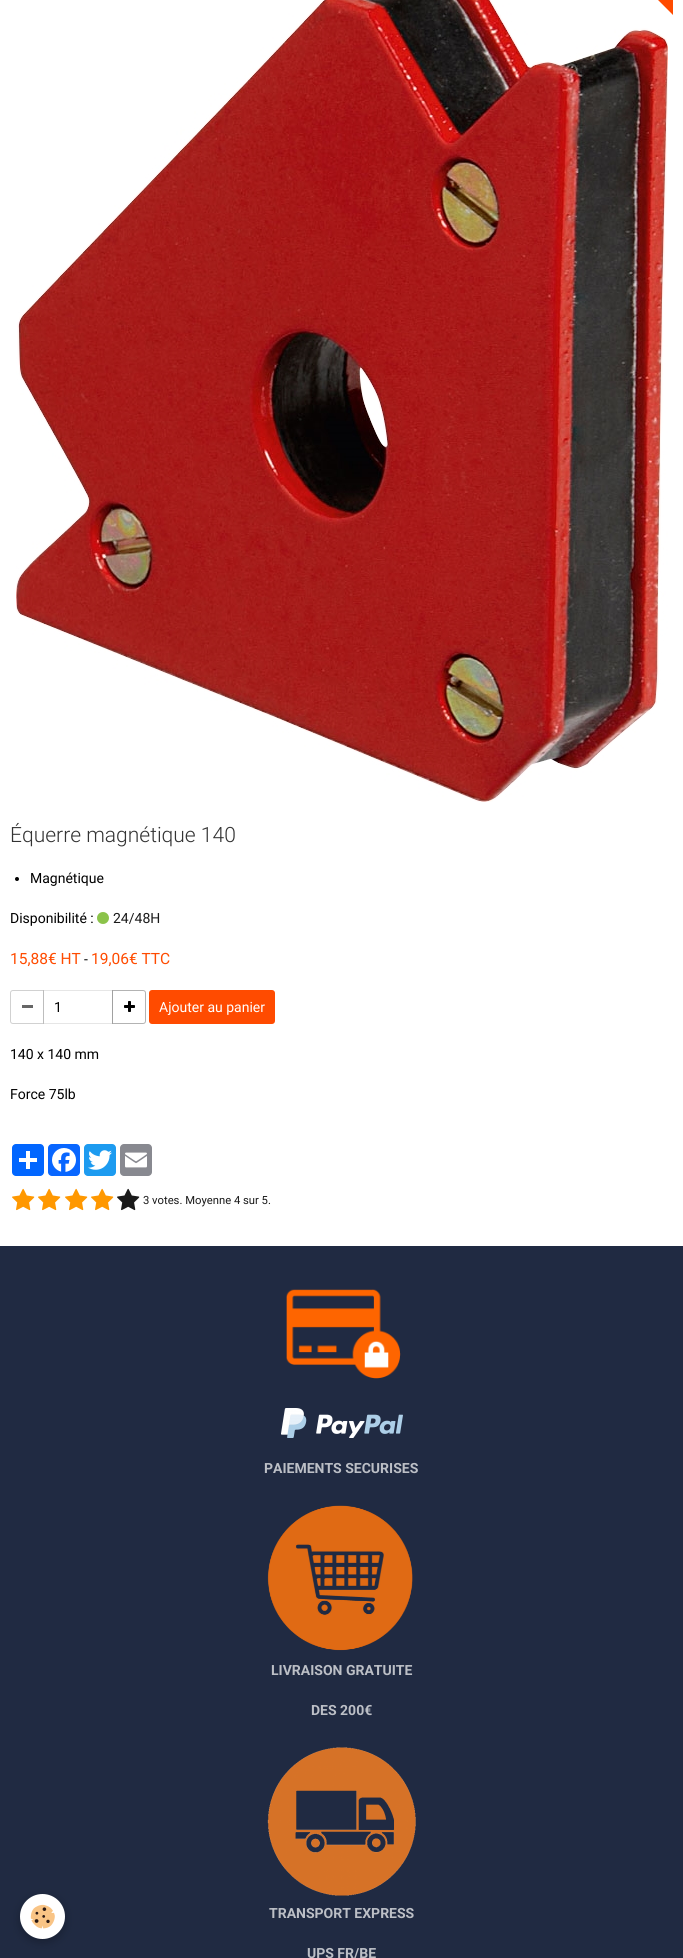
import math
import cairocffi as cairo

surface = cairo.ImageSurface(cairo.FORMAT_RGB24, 683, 1958)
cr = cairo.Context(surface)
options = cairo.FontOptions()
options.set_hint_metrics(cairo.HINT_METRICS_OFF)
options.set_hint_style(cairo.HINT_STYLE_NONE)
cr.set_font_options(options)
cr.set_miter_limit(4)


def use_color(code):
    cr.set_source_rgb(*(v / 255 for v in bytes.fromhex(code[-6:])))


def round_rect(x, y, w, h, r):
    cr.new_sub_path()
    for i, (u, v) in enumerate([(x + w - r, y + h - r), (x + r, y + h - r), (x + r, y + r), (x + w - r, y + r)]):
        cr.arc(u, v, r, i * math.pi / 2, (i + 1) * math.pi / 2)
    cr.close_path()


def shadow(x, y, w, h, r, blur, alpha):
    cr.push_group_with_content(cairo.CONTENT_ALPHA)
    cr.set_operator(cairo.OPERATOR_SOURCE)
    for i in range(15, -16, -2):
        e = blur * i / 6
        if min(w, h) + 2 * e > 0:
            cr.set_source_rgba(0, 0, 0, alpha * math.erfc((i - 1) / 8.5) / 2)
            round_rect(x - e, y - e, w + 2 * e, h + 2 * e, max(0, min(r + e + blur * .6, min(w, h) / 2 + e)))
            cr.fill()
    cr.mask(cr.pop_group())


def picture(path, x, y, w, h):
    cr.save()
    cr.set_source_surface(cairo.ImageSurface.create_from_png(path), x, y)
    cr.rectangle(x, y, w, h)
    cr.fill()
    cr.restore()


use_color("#ffffff")
cr.paint()
picture("img1.png", 16, 0, 652, 802)
use_color("#ff4b00")
cr.new_path()
cr.move_to(673, -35)
cr.line_to(673, 15)
cr.line_to(623, -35)
cr.close_path()
cr.fill()
cr.select_font_face("Roboto Light")
cr.set_font_size(21)
use_color("#333333")
cr.move_to(10, 842)
cr.show_text("Équerre magnétique 140")
use_color("#000000")
cr.new_path()
cr.arc(17, 879, 2, 0, 2 * math.pi)
cr.fill()
cr.select_font_face("Roboto")
cr.set_font_size(14)
cr.move_to(30, 883)
cr.show_text("Magnétique")
cr.move_to(10, 923)
cr.show_text("Disponibilité :")
picture("img2.png", 97, 912, 12, 12)
use_color("#1a1a1a")
cr.move_to(113, 923)
cr.show_text("24/48H")
cr.set_font_size(15.5)
use_color("#ff4b00")
cr.move_to(10, 964)
cr.show_text("15,88€ HT")
cr.set_font_size(14)
use_color("#000000")
cr.move_to(84, 964)
cr.show_text("-")
cr.set_font_size(15.5)
use_color("#ff4b00")
cr.move_to(91, 964)
cr.show_text("19,06€ TTC")
use_color("#666666")
cr.rectangle(22, 1005, 11, 3)
cr.fill()
cr.rectangle(43.5, 990.5, 69, 33)
use_color("#e6e6e6")
cr.set_line_width(1)
cr.stroke()
cr.new_path()
cr.move_to(13, 990.5)
cr.line_to(43.5, 990.5)
cr.line_to(43.5, 1023.5)
cr.line_to(13, 1023.5)
cr.curve_to(11.5, 1023.5, 10.5, 1022.5, 10.5, 1021)
cr.line_to(10.5, 993)
cr.curve_to(10.5, 991.5, 11.5, 990.5, 13, 990.5)
cr.close_path()
cr.set_source_rgba(0, 0, 0, 0.18)
cr.stroke()
cr.set_font_size(14)
use_color("#000000")
cr.move_to(54, 1012)
cr.show_text("1")
picture("img3.png", 124, 1001, 11, 11)
cr.new_path()
cr.move_to(112.5, 990.5)
cr.line_to(143, 990.5)
cr.curve_to(144.5, 990.5, 145.5, 991.5, 145.5, 993)
cr.line_to(145.5, 1021)
cr.curve_to(145.5, 1022.5, 144.5, 1023.5, 143, 1023.5)
cr.line_to(112.5, 1023.5)
cr.close_path()
cr.set_source_rgba(0, 0, 0, 0.3)
cr.stroke()
use_color("#ff4b00")
round_rect(149, 990, 126, 34, 3)
cr.fill()
use_color("#ffffff")
cr.move_to(159, 1012)
cr.show_text("Ajouter au panier")
use_color("#000000")
cr.move_to(10, 1059)
cr.show_text("140 x 140 mm")
cr.move_to(10, 1099)
cr.show_text("Force 75lb")
use_color("#0166ff")
round_rect(12, 1144, 32, 32, 4)
cr.fill()
use_color("#ffffff")
cr.rectangle(26, 1151, 4, 18)
cr.fill()
cr.rectangle(19, 1158, 18, 4)
cr.fill()
use_color("#0866ff")
round_rect(48, 1144, 32, 32, 4)
cr.fill()
picture("img4.png", 52, 1148, 24, 24)
use_color("#1d9bf0")
round_rect(84, 1144, 32, 32, 4)
cr.fill()
picture("img5.png", 88, 1150, 24, 20)
use_color("#888990")
round_rect(120, 1144, 32, 32, 4)
cr.fill()
picture("img6.png", 125, 1152, 22, 16)
picture("img7.png", 12, 1188, 23, 23)
picture("img7.png", 38, 1188, 23, 23)
picture("img7.png", 65, 1188, 23, 23)
picture("img7.png", 91, 1188, 23, 23)
picture("img8.png", 117, 1188, 23, 23)
cr.set_font_size(11.25)
use_color("#1a1a1a")
cr.move_to(143, 1204)
cr.show_text("3 votes. Moyenne 4 sur 5.")
use_color("#202a42")
cr.rectangle(0, 1246, 683, 712)
cr.fill()
use_color("#000000")
shadow(20, 1897, 45, 45, 22.5, 5, 0.24)
use_color("#ffffff")
cr.arc(42.5, 1916.5, 22.5, 0, 2 * math.pi)
cr.fill()
picture("img9.png", 30, 1904, 25, 25)
picture("img10.png", 286, 1289, 115, 90)
picture("img11.png", 281, 1408, 122, 30)
cr.select_font_face("Roboto", cairo.FONT_SLANT_NORMAL, cairo.FONT_WEIGHT_BOLD)
cr.set_font_size(14)
use_color("#bcbfc6")
cr.move_to(264, 1473)
cr.show_text("PAIEMENTS SECURISES")
picture("img12.png", 267, 1505, 146, 146)
cr.move_to(271, 1675)
cr.show_text("LIVRAISON GRATUITE")
cr.move_to(311, 1715)
cr.show_text("DES 200€")
picture("img13.png", 267, 1747, 149, 149)
cr.move_to(269, 1918)
cr.show_text("TRANSPORT EXPRESS")
cr.move_to(307, 1958)
cr.show_text("UPS FR/BE")
surface.write_to_png("result.png")
